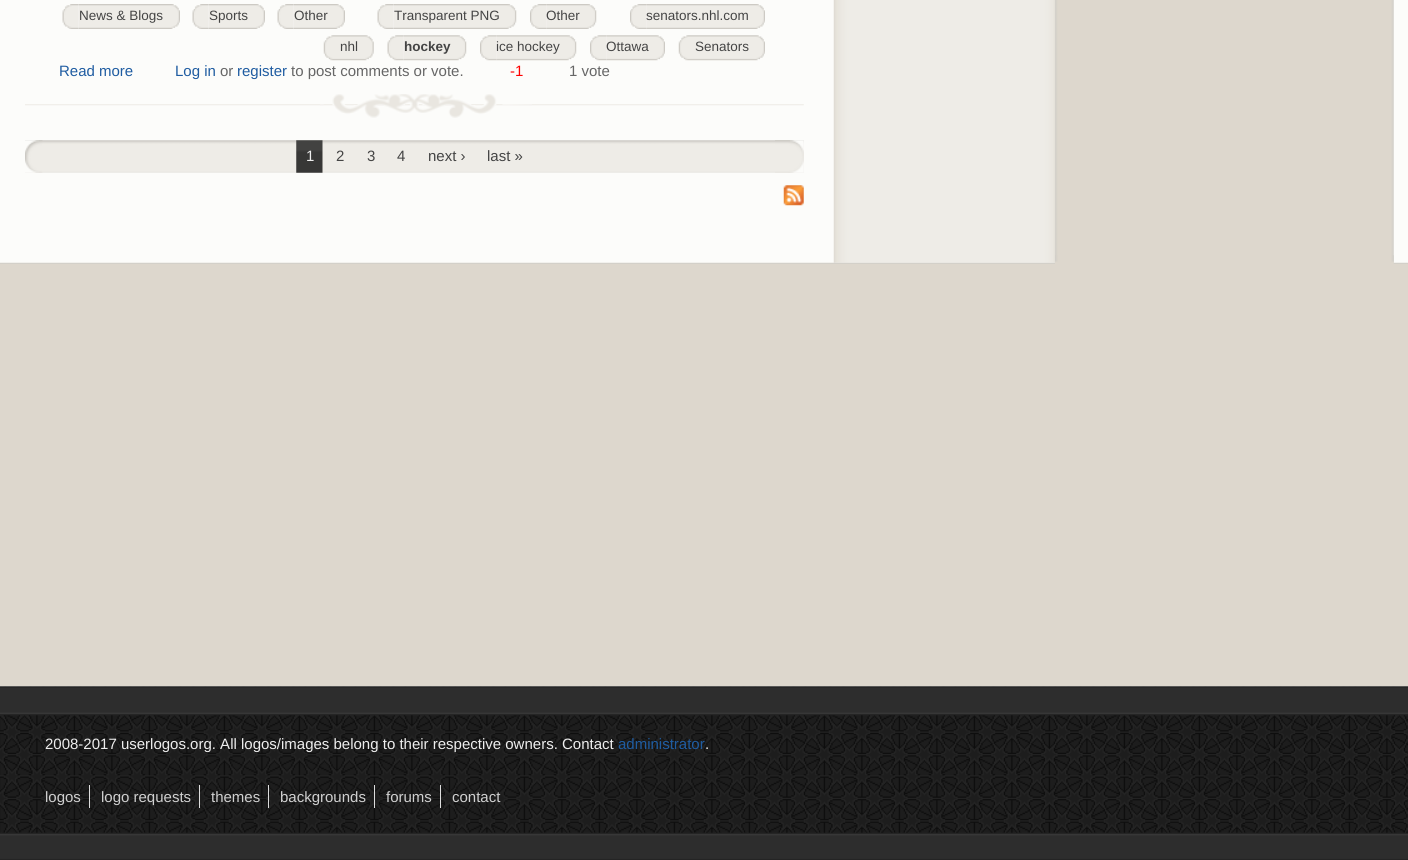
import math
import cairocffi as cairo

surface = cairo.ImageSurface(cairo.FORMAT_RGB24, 1408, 860)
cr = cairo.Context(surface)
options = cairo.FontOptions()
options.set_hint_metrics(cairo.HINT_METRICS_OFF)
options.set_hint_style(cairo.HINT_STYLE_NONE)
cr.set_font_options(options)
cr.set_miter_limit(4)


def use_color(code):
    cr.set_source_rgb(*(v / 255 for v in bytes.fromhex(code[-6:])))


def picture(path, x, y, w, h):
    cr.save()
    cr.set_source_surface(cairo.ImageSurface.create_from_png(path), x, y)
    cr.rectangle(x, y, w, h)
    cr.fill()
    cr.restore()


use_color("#fcfcfa")
cr.paint()
picture("img1.png", 833, 0, 561, 263)
picture("img30.png", 0, 262, 1408, 2)
picture("img2.png", 1055, 255, 339, 9)
picture("img3.png", 62, 4, 17, 25)
picture("img4.png", 79, 4, 101, 25)
cr.select_font_face("Liberation Sans")
cr.set_font_size(13.5)
use_color("#444444")
cr.move_to(79, 20)
cr.show_text("News & Blogs")
picture("img5.png", 192, 4, 17, 25)
picture("img6.png", 209, 4, 56, 25)
cr.move_to(209, 20)
cr.show_text("Sports")
picture("img3.png", 277, 4, 17, 25)
picture("img7.png", 294, 4, 51, 25)
cr.move_to(294, 20)
cr.show_text("Other")
picture("img3.png", 377, 4, 17, 25)
picture("img8.png", 394, 4, 123, 25)
cr.move_to(394, 20)
cr.show_text("Transparent PNG")
picture("img9.png", 530, 4, 17, 25)
picture("img10.png", 546, 4, 51, 25)
cr.move_to(546, 20)
cr.show_text("Other")
picture("img11.png", 630, 4, 17, 25)
picture("img12.png", 646, 4, 119, 25)
cr.move_to(646, 20)
cr.show_text("senators.nhl.com")
picture("img13.png", 323, 35, 17, 26)
picture("img14.png", 340, 35, 34, 26)
cr.move_to(340, 51)
cr.show_text("nhl")
picture("img15.png", 387, 35, 17, 26)
picture("img16.png", 403, 35, 64, 26)
cr.select_font_face("Liberation Sans", cairo.FONT_SLANT_NORMAL, cairo.FONT_WEIGHT_BOLD)
cr.move_to(404, 51)
cr.show_text("hockey")
picture("img17.png", 480, 35, 17, 26)
picture("img18.png", 496, 35, 81, 26)
cr.select_font_face("Liberation Sans")
cr.move_to(496, 51)
cr.show_text("ice hockey")
picture("img19.png", 590, 35, 17, 26)
picture("img20.png", 606, 35, 59, 26)
cr.move_to(606, 51)
cr.show_text("Ottawa")
picture("img21.png", 678, 35, 17, 26)
picture("img22.png", 695, 35, 70, 26)
cr.move_to(695, 51)
cr.show_text("Senators")
cr.set_font_size(15)
use_color("#1f5ca1")
cr.move_to(59, 76)
cr.show_text("Read more")
cr.move_to(175, 76)
cr.show_text("Log in")
use_color("#666666")
cr.move_to(220, 76)
cr.show_text("or")
use_color("#1f5ca1")
cr.move_to(237, 76)
cr.show_text("register")
use_color("#666666")
cr.move_to(291, 76)
cr.show_text("to post comments or vote.")
use_color("#ff0000")
cr.move_to(510, 76)
cr.show_text("-1")
use_color("#666666")
cr.move_to(569, 76)
cr.show_text("1 vote")
picture("img23.png", 25, 104, 779, 2)
picture("img24.png", 320, 94, 212, 24)
picture("img25.png", 25, 140, 779, 33)
picture("img26.png", 25, 140, 18, 33)
picture("img27.png", 775, 140, 29, 33)
picture("img28.png", 296, 140, 27, 33)
use_color("#eeeeee")
cr.move_to(306, 161)
cr.show_text("1")
use_color("#444444")
cr.move_to(336, 161)
cr.show_text("2")
cr.move_to(367, 161)
cr.show_text("3")
cr.move_to(397, 161)
cr.show_text("4")
cr.move_to(428, 161)
cr.show_text("next ›")
cr.move_to(487, 161)
cr.show_text("last »")
picture("img29.png", 783, 185, 21, 21)
use_color("#ddd7cd")
cr.rectangle(0, 264, 1408, 422)
cr.fill()
picture("img31.png", 0, 686, 1408, 147)
picture("img32.png", 0, 686, 1408, 30)
picture("img33.png", 0, 832, 1408, 28)
use_color("#eeeeee")
cr.move_to(45, 749)
cr.show_text("2008-2017 userlogos.org. All logos/images belong to their respective owners. Contact")
use_color("#1f5ca1")
cr.move_to(618, 749)
cr.show_text("administrator")
use_color("#eeeeee")
cr.move_to(705, 749)
cr.show_text(".")
use_color("#d0d0d0")
cr.move_to(45, 802)
cr.show_text("logos")
use_color("#dddddd")
cr.rectangle(89, 785, 1, 23)
cr.fill()
use_color("#d0d0d0")
cr.move_to(101, 802)
cr.show_text("logo requests")
use_color("#dddddd")
cr.rectangle(199, 785, 1, 23)
cr.fill()
use_color("#d0d0d0")
cr.move_to(211, 802)
cr.show_text("themes")
use_color("#dddddd")
cr.rectangle(268, 785, 1, 23)
cr.fill()
use_color("#d0d0d0")
cr.move_to(280, 802)
cr.show_text("backgrounds")
use_color("#dddddd")
cr.rectangle(374, 785, 1, 23)
cr.fill()
use_color("#d0d0d0")
cr.move_to(386, 802)
cr.show_text("forums")
use_color("#dddddd")
cr.rectangle(440, 785, 1, 23)
cr.fill()
use_color("#d0d0d0")
cr.move_to(452, 802)
cr.show_text("contact")
surface.write_to_png("result.png")
